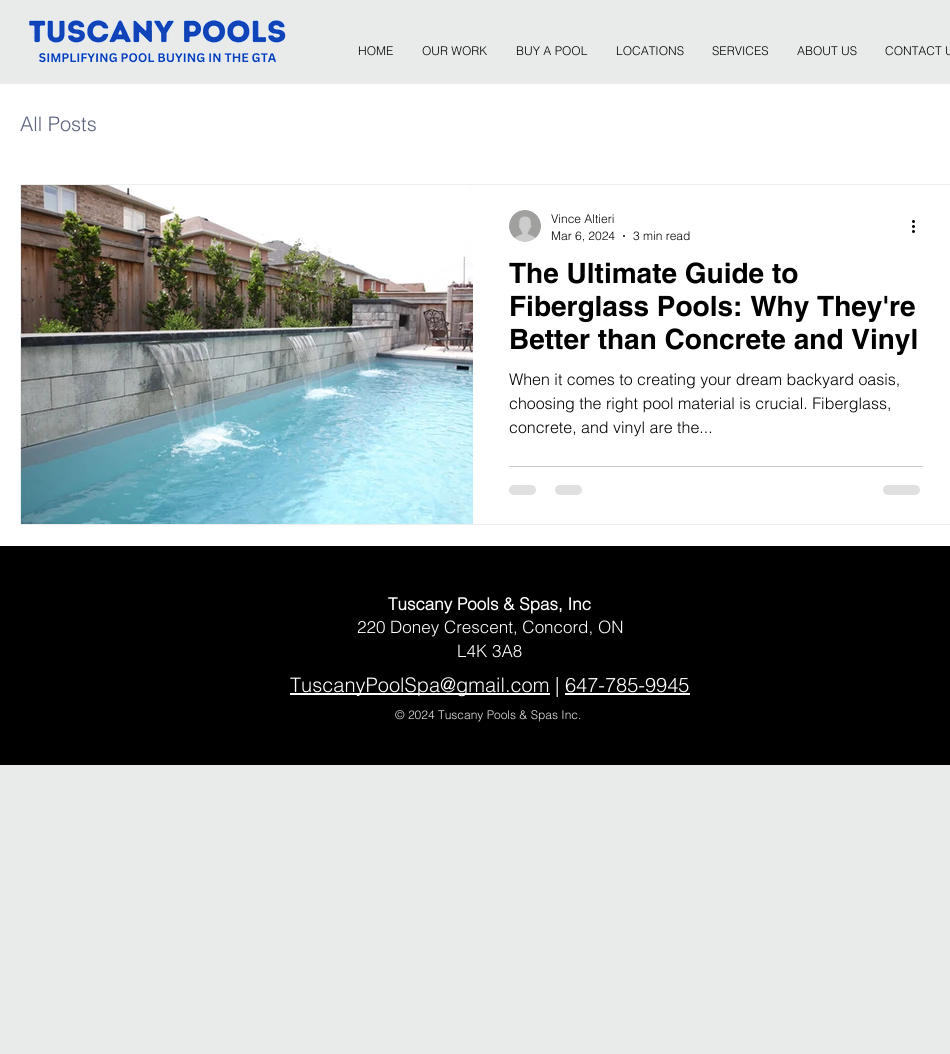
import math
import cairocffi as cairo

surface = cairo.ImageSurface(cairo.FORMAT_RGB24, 950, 1054)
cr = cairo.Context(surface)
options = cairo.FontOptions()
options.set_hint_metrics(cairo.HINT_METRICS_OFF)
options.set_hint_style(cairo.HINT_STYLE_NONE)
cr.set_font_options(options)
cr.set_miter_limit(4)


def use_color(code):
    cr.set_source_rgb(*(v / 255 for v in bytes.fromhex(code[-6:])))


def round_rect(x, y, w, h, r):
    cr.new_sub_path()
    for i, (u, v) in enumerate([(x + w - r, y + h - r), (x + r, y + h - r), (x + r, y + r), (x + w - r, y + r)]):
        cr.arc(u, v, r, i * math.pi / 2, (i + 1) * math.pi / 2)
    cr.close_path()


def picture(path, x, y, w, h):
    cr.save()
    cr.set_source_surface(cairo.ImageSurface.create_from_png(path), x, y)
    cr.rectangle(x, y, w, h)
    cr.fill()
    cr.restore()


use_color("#e9ebeb")
cr.paint()
picture("img1.png", 29, 20, 257, 43)
cr.select_font_face("helvetica Light")
cr.set_font_size(12)
use_color("#000000")
cr.move_to(358, 55)
cr.show_text("HOME")
cr.move_to(422, 55)
cr.show_text("OUR WORK")
cr.move_to(516, 55)
cr.show_text("BUY A POOL")
cr.move_to(616, 55)
cr.show_text("LOCATIONS")
cr.move_to(712, 55)
cr.show_text("SERVICES")
cr.move_to(797, 55)
cr.show_text("ABOUT US")
cr.move_to(885, 55)
cr.show_text("CONTACT U")
use_color("#ffffff")
cr.rectangle(0, 84, 950, 462)
cr.fill()
cr.set_font_size(20)
use_color("#5a627c")
cr.move_to(20, 131)
cr.show_text("All Posts")
cr.rectangle(20.5, 184.5, 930, 340)
use_color("#eeeeee")
cr.set_line_width(1)
cr.stroke()
picture("img2.png", 21, 185, 452, 339)
picture("img3.png", 509, 210, 32, 32)
cr.set_font_size(12)
use_color("#000000")
cr.move_to(551, 223)
cr.show_text("Vince Altieri")
cr.move_to(551, 240)
cr.show_text("Mar 6, 2024")
cr.new_path()
cr.arc(624, 236, 1, 0, 2 * math.pi)
cr.fill()
cr.move_to(633, 240)
cr.show_text("3 min read")
picture("img4.png", 912, 220, 3, 13)
cr.select_font_face("helvetica", cairo.FONT_SLANT_NORMAL, cairo.FONT_WEIGHT_BOLD)
cr.set_font_size(28)
cr.move_to(509, 283)
cr.show_text("The Ultimate Guide to")
cr.move_to(509, 316)
cr.show_text("Fiberglass Pools: Why They're")
cr.move_to(509, 349)
cr.show_text("Better than Concrete and Vinyl")
cr.select_font_face("helvetica Light")
cr.set_font_size(16)
cr.move_to(509, 385)
cr.show_text("When it comes to creating your dream backyard oasis,")
cr.move_to(509, 409)
cr.show_text("choosing the right pool material is crucial. Fiberglass,")
cr.move_to(509, 433)
cr.show_text("concrete, and vinyl are the...")
use_color("#cccccc")
cr.rectangle(509, 466, 414, 1)
cr.fill()
use_color("#e0e0e0")
round_rect(509, 485, 27, 10, 5)
cr.fill()
round_rect(555, 485, 27, 10, 5)
cr.fill()
round_rect(883, 485, 37, 10, 5)
cr.fill()
use_color("#000000")
cr.rectangle(0, 546, 950, 219)
cr.fill()
cr.select_font_face("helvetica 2", cairo.FONT_SLANT_NORMAL, cairo.FONT_WEIGHT_BOLD)
cr.set_font_size(17)
use_color("#ffffff")
cr.move_to(388, 610)
cr.show_text("Tuscany Pools & Spas, Inc")
cr.select_font_face("helvetica Light")
cr.move_to(357, 633)
cr.show_text("220 Doney Crescent, Concord, ON")
cr.move_to(457, 657)
cr.show_text("L4K 3A8")
cr.rectangle(290, 693, 260, 2)
cr.fill()
cr.set_font_size(20)
cr.move_to(290, 692)
cr.show_text("TuscanyPoolSpa@gmail.com | 647-785-9945")
cr.rectangle(565, 693, 125, 2)
cr.fill()
cr.set_font_size(12)
use_color("#e8e8e8")
cr.move_to(395, 719)
cr.show_text("© 2024 Tuscany Pools & Spas Inc.")
surface.write_to_png("result.png")
